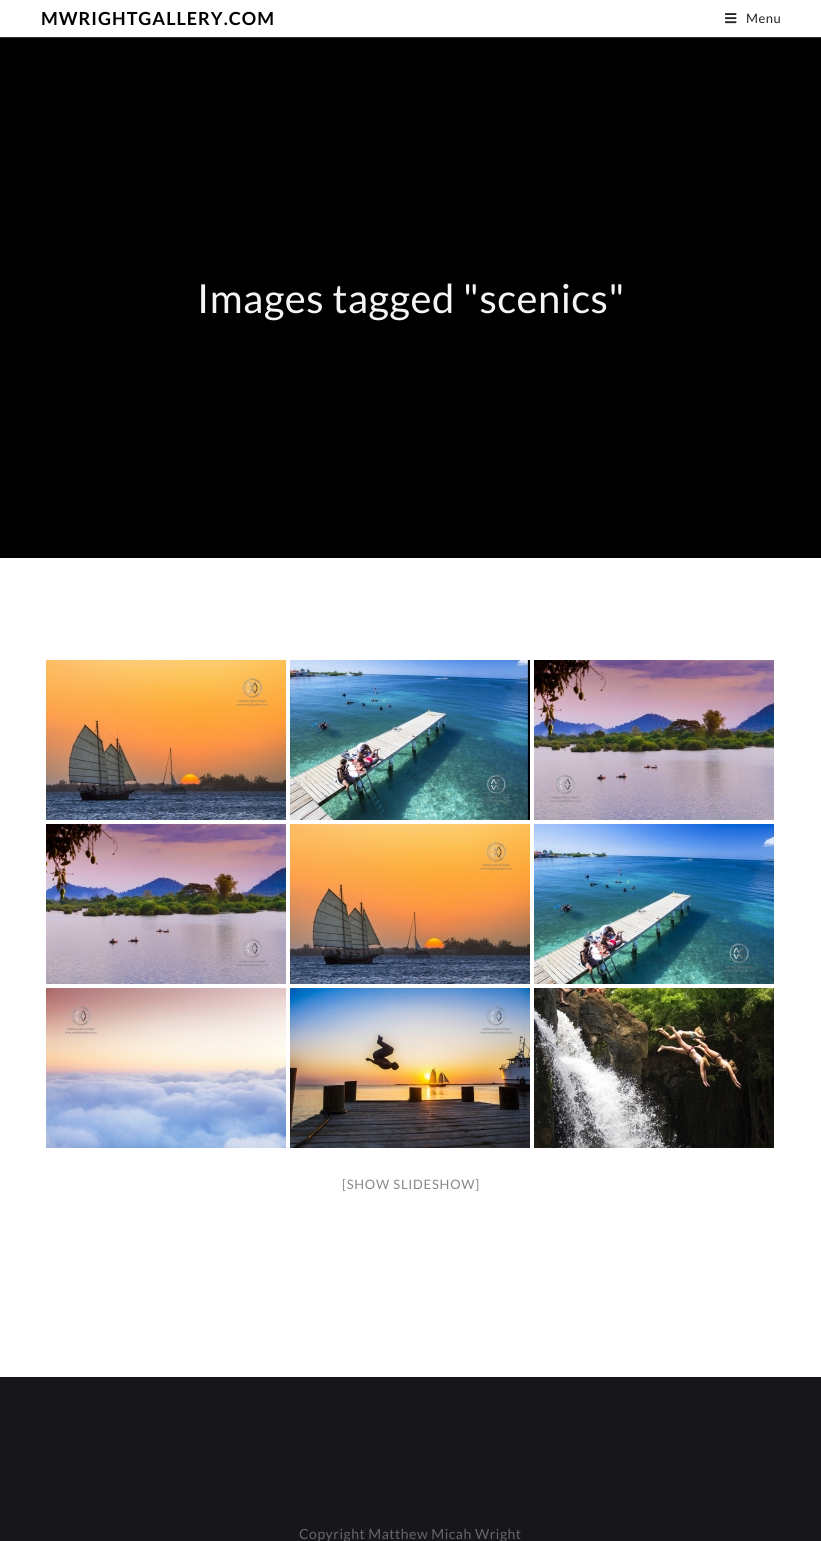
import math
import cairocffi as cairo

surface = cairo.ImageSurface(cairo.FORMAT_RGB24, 821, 1541)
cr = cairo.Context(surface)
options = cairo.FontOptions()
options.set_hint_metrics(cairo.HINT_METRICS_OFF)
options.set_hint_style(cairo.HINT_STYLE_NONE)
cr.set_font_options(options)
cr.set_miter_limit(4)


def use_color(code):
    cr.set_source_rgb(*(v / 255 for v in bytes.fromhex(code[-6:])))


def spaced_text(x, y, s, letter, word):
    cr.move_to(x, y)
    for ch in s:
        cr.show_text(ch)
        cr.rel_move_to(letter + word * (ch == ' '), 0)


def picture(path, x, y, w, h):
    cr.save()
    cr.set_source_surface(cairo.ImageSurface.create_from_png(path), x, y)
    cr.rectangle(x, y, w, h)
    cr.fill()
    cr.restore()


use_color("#ffffff")
cr.paint()
use_color("#2a3137")
cr.rectangle(0, 37, 821, 1)
cr.fill()
cr.select_font_face("Lato", cairo.FONT_SLANT_NORMAL, cairo.FONT_WEIGHT_BOLD)
cr.set_font_size(18)
use_color("#000000")
spaced_text(41, 25, "MWRIGHTGALLERY.COM", 1, 0)
picture("img1.png", 725, 13, 12, 11)
cr.select_font_face("Lato")
cr.set_font_size(13)
use_color("#222222")
spaced_text(746, 23, "Menu", 0.5, 0)
use_color("#000000")
cr.rectangle(0, 38, 821, 520)
cr.fill()
cr.set_font_size(40)
use_color("#f5f5f5")
spaced_text(197, 313, "Images tagged \"scenics\"", 0.5, 0)
picture("img2.png", 46, 660, 240, 160)
picture("img3.png", 290, 660, 240, 160)
picture("img4.png", 534, 660, 240, 160)
picture("img5.png", 46, 824, 240, 160)
picture("img6.png", 290, 824, 240, 160)
picture("img7.png", 534, 824, 240, 160)
picture("img8.png", 46, 988, 240, 160)
picture("img9.png", 290, 988, 240, 160)
picture("img10.png", 534, 988, 240, 160)
cr.set_font_size(13)
use_color("#888888")
spaced_text(342, 1189, "[SHOW SLIDESHOW]", 0.75, 0)
use_color("#17161b")
cr.rectangle(0, 1377, 821, 164)
cr.fill()
cr.set_font_size(14)
use_color("#666666")
spaced_text(299, 1539, "Copyright Matthew Micah Wright", 0.5, 0)
surface.write_to_png("result.png")
